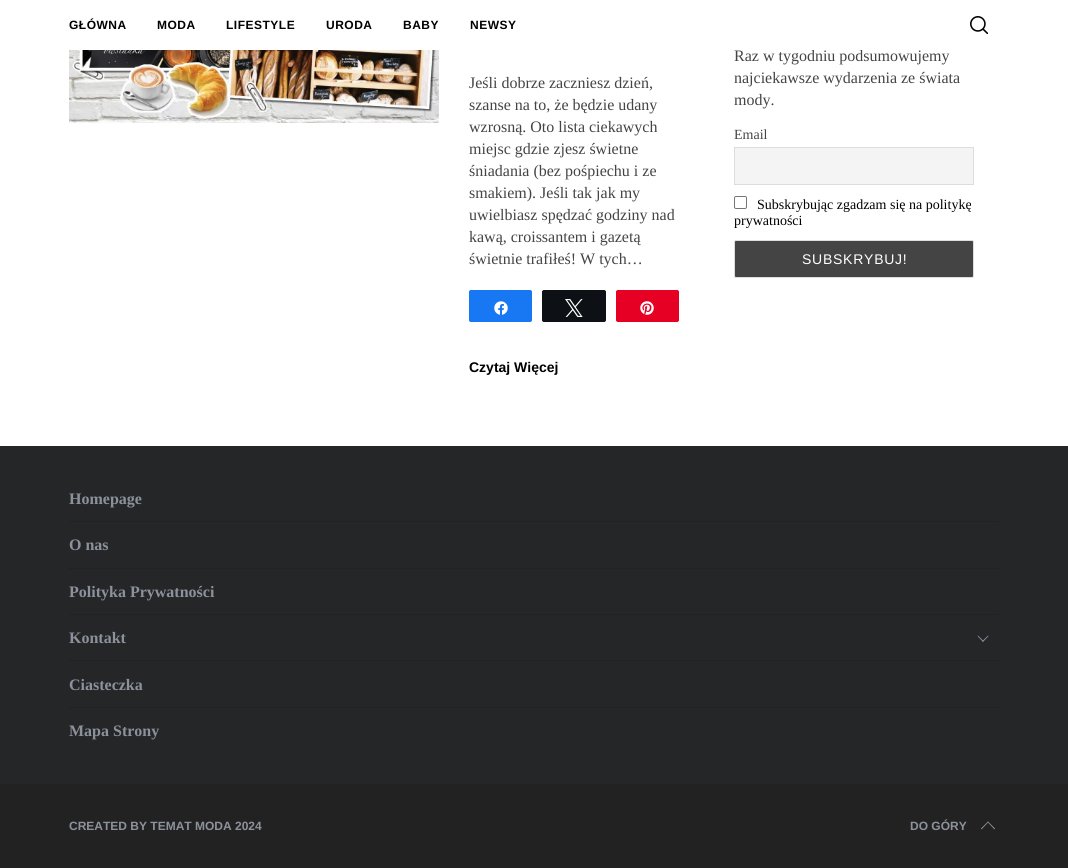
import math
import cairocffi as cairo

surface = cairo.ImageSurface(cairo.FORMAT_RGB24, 1068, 868)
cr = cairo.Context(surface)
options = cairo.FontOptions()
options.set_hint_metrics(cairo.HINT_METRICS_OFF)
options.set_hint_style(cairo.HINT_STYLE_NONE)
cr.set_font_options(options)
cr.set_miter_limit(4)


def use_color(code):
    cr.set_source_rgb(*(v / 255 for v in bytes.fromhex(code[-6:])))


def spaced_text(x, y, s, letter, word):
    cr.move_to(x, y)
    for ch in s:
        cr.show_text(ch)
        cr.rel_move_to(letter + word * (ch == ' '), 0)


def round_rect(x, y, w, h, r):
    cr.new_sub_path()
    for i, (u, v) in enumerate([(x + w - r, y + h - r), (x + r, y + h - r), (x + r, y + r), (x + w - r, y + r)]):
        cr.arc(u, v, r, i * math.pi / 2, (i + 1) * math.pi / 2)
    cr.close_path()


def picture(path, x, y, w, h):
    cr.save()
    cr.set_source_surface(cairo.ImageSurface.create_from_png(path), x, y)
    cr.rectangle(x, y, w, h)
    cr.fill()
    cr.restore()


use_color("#ffffff")
cr.paint()
cr.select_font_face("Liberation Serif")
cr.set_font_size(16)
use_color("#444444")
cr.move_to(734, 61)
cr.show_text("Raz w tygodniu podsumowujemy")
use_color("#ffffff")
cr.rectangle(811, 49, 52, 1)
cr.fill()
cr.select_font_face("Liberation Sans", cairo.FONT_SLANT_NORMAL, cairo.FONT_WEIGHT_BOLD)
cr.set_font_size(12)
use_color("#000000")
spaced_text(69, 29, "GŁÓWNA", 0.5, 0)
spaced_text(157, 29, "MODA", 0.5, 0)
spaced_text(226, 29, "LIFESTYLE", 0.5, 0)
spaced_text(326, 29, "URODA", 0.5, 0)
spaced_text(403, 29, "BABY", 0.5, 0)
spaced_text(470, 29, "NEWSY", 0.5, 0)
picture("img1.png", 970, 16, 18, 18)
picture("img2.png", 69, 50, 370, 73)
cr.select_font_face("Liberation Serif")
cr.set_font_size(16)
use_color("#444444")
cr.move_to(469, 88)
cr.show_text("Jeśli dobrze zaczniesz dzień,")
cr.move_to(469, 110)
cr.show_text("szanse na to, że będzie udany")
cr.move_to(469, 132)
cr.show_text("wzrosną. Oto lista ciekawych")
cr.move_to(469, 154)
cr.show_text("miejsc gdzie zjesz świetne")
cr.move_to(469, 176)
cr.show_text("śniadania (bez pośpiechu i ze")
cr.move_to(469, 198)
cr.show_text("smakiem). Jeśli tak jak my")
cr.move_to(469, 220)
cr.show_text("uwielbiasz spędzać godziny nad")
cr.move_to(469, 242)
cr.show_text("kawą, croissantem i gazetą")
cr.move_to(469, 264)
cr.show_text("świetnie trafiłeś! W tych…")
use_color("#1877f2")
round_rect(469.5, 290.5, 62, 31, 1.5)
cr.fill_preserve()
cr.set_line_width(1)
cr.stroke()
picture("img3.png", 494, 301, 14, 14)
use_color("#0d1014")
round_rect(542.5, 290.5, 63, 31, 1.5)
cr.fill_preserve()
cr.stroke()
picture("img4.png", 565, 299, 18, 18)
use_color("#e60023")
round_rect(616.5, 290.5, 62, 31, 1.5)
cr.fill_preserve()
cr.stroke()
picture("img5.png", 640, 301, 14, 14)
cr.select_font_face("Liberation Sans", cairo.FONT_SLANT_NORMAL, cairo.FONT_WEIGHT_BOLD)
cr.set_font_size(14)
use_color("#000000")
cr.move_to(469, 372)
cr.show_text("Czytaj Więcej")
cr.select_font_face("Liberation Serif")
cr.set_font_size(16)
use_color("#444444")
cr.move_to(734, 83)
cr.show_text("najciekawsze wydarzenia ze świata")
cr.move_to(734, 105)
cr.show_text("mody.")
cr.set_font_size(14)
cr.move_to(734, 139)
cr.show_text("Email")
use_color("#f4f4f4")
cr.rectangle(734.5, 147.5, 239, 37)
cr.fill_preserve()
use_color("#dddddd")
cr.stroke()
round_rect(734.5, 196.5, 12, 12, 1.5)
use_color("#767676")
cr.stroke()
use_color("#000000")
cr.move_to(757, 209)
cr.show_text("Subskrybując zgadzam się na politykę")
cr.move_to(734, 225)
cr.show_text("prywatności")
use_color("#444444")
round_rect(734.5, 240.5, 239, 37, 1.5)
cr.fill_preserve()
use_color("#dddddd")
cr.stroke()
cr.select_font_face("Liberation Sans")
use_color("#ffffff")
spaced_text(802, 264, "SUBSKRYBUJ!", 0.75, 0)
use_color("#242628")
cr.rectangle(0, 446, 1068, 338)
cr.fill()
cr.select_font_face("Liberation Serif", cairo.FONT_SLANT_NORMAL, cairo.FONT_WEIGHT_BOLD)
cr.set_font_size(16)
use_color("#8c919b")
cr.move_to(69, 504)
cr.show_text("Homepage")
use_color("#202224")
cr.rectangle(69, 521, 930, 1)
cr.fill()
use_color("#8c919b")
cr.move_to(69, 550)
cr.show_text("O nas")
use_color("#202224")
cr.rectangle(69, 568, 930, 1)
cr.fill()
use_color("#8c919b")
cr.move_to(69, 597)
cr.show_text("Polityka Prywatności")
use_color("#202224")
cr.rectangle(69, 614, 930, 1)
cr.fill()
use_color("#8c919b")
cr.move_to(69, 643)
cr.show_text("Kontakt")
cr.new_path()
cr.move_to(988.5, 636)
cr.line_to(983, 642)
cr.line_to(982.5, 641)
cr.line_to(988, 635.5)
cr.close_path()
cr.fill()
cr.new_path()
cr.move_to(983.5, 641)
cr.line_to(983, 642)
cr.line_to(977.5, 636)
cr.line_to(978, 635.5)
cr.close_path()
cr.fill()
use_color("#202224")
cr.rectangle(69, 660, 930, 1)
cr.fill()
use_color("#8c919b")
cr.move_to(69, 690)
cr.show_text("Ciasteczka")
use_color("#202224")
cr.rectangle(69, 707, 930, 1)
cr.fill()
use_color("#8c919b")
cr.move_to(69, 736)
cr.show_text("Mapa Strony")
use_color("#222222")
cr.rectangle(0, 784, 1068, 84)
cr.fill()
cr.select_font_face("Liberation Sans", cairo.FONT_SLANT_NORMAL, cairo.FONT_WEIGHT_BOLD)
cr.set_font_size(12)
use_color("#8c919b")
cr.move_to(69, 830)
cr.show_text("CREATED BY TEMAT MODA 2024")
cr.move_to(910, 830)
cr.show_text("DO GÓRY")
cr.new_path()
cr.move_to(981, 828.5)
cr.line_to(988, 821.5)
cr.line_to(988.5, 822)
cr.line_to(981.5, 829.5)
cr.close_path()
cr.fill()
cr.new_path()
cr.move_to(987.5, 822)
cr.line_to(988, 821.5)
cr.line_to(995, 828.5)
cr.line_to(994.5, 829.5)
cr.close_path()
cr.fill()
surface.write_to_png("result.png")
